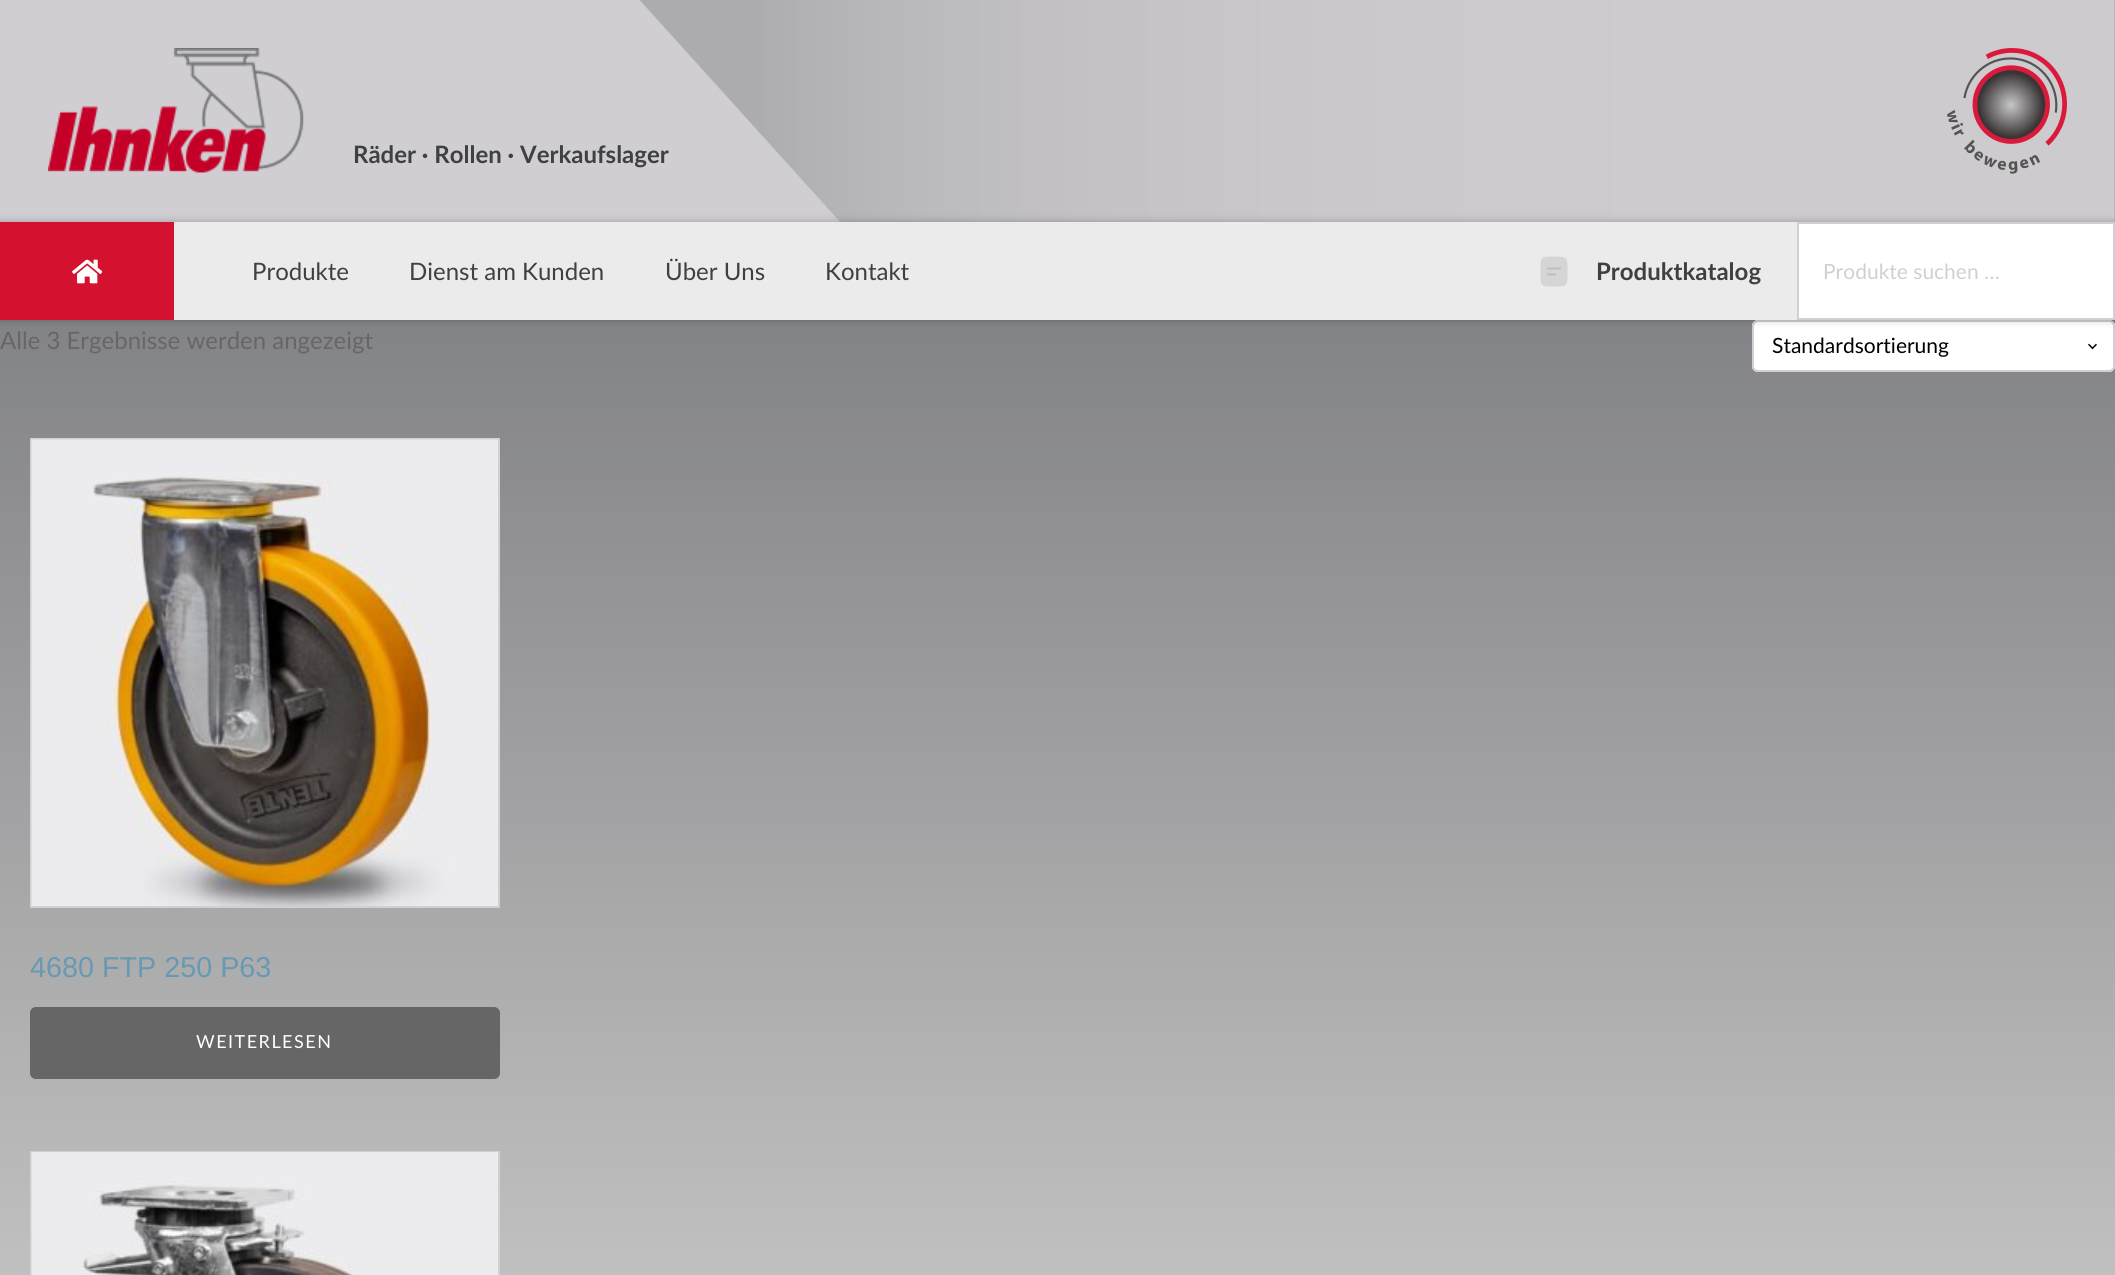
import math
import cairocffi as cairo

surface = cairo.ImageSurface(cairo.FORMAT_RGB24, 2115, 1275)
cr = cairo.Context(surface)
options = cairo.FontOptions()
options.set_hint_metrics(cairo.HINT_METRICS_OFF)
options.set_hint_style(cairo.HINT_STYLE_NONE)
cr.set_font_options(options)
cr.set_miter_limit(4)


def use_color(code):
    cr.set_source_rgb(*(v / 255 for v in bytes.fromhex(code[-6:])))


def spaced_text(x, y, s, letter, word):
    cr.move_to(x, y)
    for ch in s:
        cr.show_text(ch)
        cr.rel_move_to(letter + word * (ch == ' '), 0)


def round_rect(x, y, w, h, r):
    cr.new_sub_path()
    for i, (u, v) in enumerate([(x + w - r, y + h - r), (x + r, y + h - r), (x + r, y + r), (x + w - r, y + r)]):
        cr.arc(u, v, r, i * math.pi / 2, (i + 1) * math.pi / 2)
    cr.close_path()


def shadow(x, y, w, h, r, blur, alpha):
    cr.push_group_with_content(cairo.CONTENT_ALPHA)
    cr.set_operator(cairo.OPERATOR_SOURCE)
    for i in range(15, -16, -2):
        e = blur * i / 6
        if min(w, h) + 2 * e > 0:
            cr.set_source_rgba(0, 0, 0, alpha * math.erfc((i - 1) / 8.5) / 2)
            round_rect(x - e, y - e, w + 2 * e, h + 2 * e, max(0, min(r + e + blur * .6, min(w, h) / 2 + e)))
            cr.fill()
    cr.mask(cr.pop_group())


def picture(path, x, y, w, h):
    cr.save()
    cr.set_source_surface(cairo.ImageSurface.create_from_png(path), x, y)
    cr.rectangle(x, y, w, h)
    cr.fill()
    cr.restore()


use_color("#ffffff")
cr.paint()
gradient = cairo.LinearGradient(1058, 0, 1058, 1275)
gradient.add_color_stop_rgba(0, 0.431, 0.435, 0.451, 1)
gradient.add_color_stop_rgba(1, 0.753, 0.753, 0.753, 1)
cr.set_source(gradient)
cr.rectangle(0, 0, 2115, 1275)
cr.fill()
picture("img1.png", 0, 0, 2115, 222)
picture("img2.png", 48, 48, 256, 125)
cr.select_font_face("Lato", cairo.FONT_SLANT_NORMAL, cairo.FONT_WEIGHT_BOLD)
cr.set_font_size(24)
use_color("#404040")
cr.move_to(353, 163)
cr.show_text("Räder · Rollen · Verkaufslager")
picture("img3.png", 1947, 48, 120, 126)
use_color("#ffffff")
round_rect(1752, 320, 363, 52, 6)
cr.fill()
picture("img6.png", 2088, 343, 9, 7)
round_rect(1753, 321, 361, 50, 5)
use_color("#d3ced2")
cr.stroke()
use_color("#000000")
shadow(0, 222, 2115, 98, 0, 4, 0.25)
use_color("#ebebeb")
cr.rectangle(174, 222, 1623, 98)
cr.fill()
use_color("#d51130")
cr.rectangle(0, 222, 174, 98)
cr.fill()
picture("img4.png", 72, 259, 30, 25)
cr.select_font_face("Lato")
use_color("#404040")
cr.move_to(252, 280)
cr.show_text("Produkte")
cr.move_to(409, 280)
cr.show_text("Dienst am Kunden")
cr.move_to(665, 280)
cr.show_text("Über Uns")
cr.move_to(825, 280)
cr.show_text("Kontakt")
picture("img5.png", 1540, 256, 28, 31)
cr.select_font_face("Lato", cairo.FONT_SLANT_NORMAL, cairo.FONT_WEIGHT_BOLD)
cr.move_to(1596, 280)
cr.show_text("Produktkatalog")
use_color("#ffffff")
cr.rectangle(1798, 223, 316, 96)
cr.fill_preserve()
use_color("#d3ced2")
cr.stroke()
cr.select_font_face("Lato")
cr.set_font_size(21)
cr.move_to(1823, 279)
cr.show_text("Produkte suchen …")
cr.set_font_size(24)
use_color("#666666")
cr.move_to(0, 349)
cr.show_text("Alle 3 Ergebnisse werden angezeigt")
cr.set_font_size(21)
use_color("#000000")
cr.move_to(1772, 353)
cr.show_text("Standardsortierung")
cr.rectangle(31, 439, 468, 468)
use_color("#d3ced2")
cr.stroke()
picture("img7.png", 31, 439, 467, 467)
cr.select_font_face("Liberation Sans")
cr.set_font_size(28.75)
use_color("#6799b2")
cr.move_to(30, 977)
cr.show_text("4680 FTP 250 P63")
use_color("#666666")
round_rect(31, 1008, 468, 70, 5)
cr.fill_preserve()
cr.stroke()
cr.select_font_face("Lato")
cr.set_font_size(18)
use_color("#ffffff")
spaced_text(196, 1048, "WEITERLESEN", 1.5, 0)
cr.rectangle(31, 1152, 468, 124)
use_color("#d3ced2")
cr.stroke()
picture("img8.png", 31, 1152, 467, 123)
surface.write_to_png("result.png")
